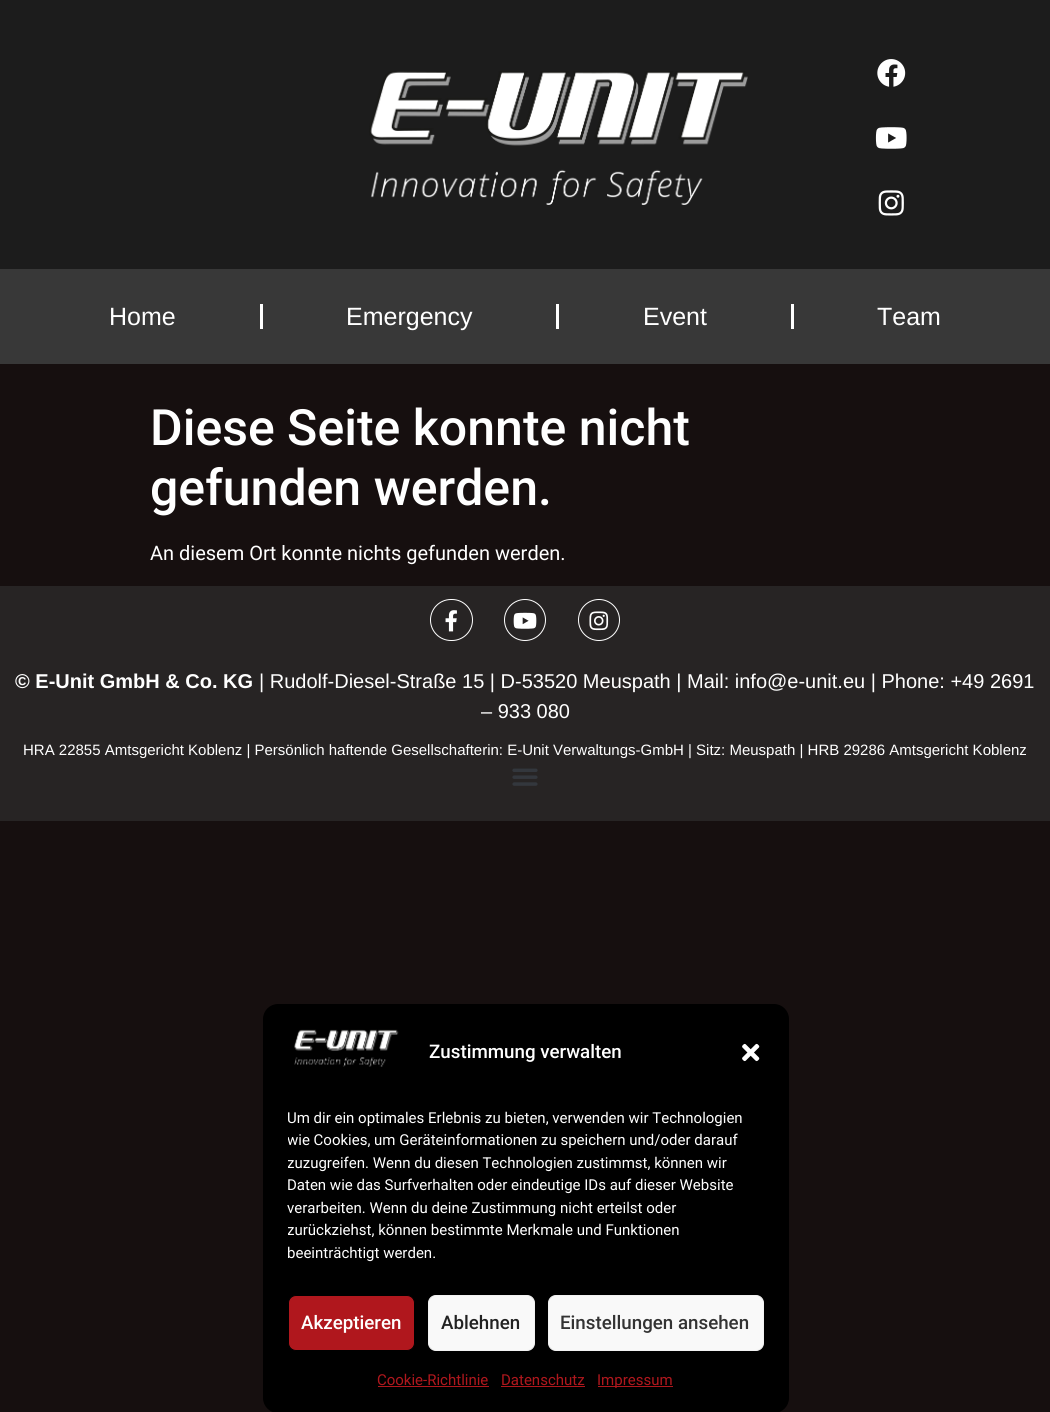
import math
import cairocffi as cairo

surface = cairo.ImageSurface(cairo.FORMAT_RGB24, 1050, 1412)
cr = cairo.Context(surface)
options = cairo.FontOptions()
options.set_hint_metrics(cairo.HINT_METRICS_OFF)
options.set_hint_style(cairo.HINT_STYLE_NONE)
cr.set_font_options(options)
cr.set_miter_limit(4)


def use_color(code):
    cr.set_source_rgb(*(v / 255 for v in bytes.fromhex(code[-6:])))


def round_rect(x, y, w, h, r):
    cr.new_sub_path()
    for i, (u, v) in enumerate([(x + w - r, y + h - r), (x + r, y + h - r), (x + r, y + r), (x + w - r, y + r)]):
        cr.arc(u, v, r, i * math.pi / 2, (i + 1) * math.pi / 2)
    cr.close_path()


def picture(path, x, y, w, h):
    cr.save()
    cr.set_source_surface(cairo.ImageSurface.create_from_png(path), x, y)
    cr.rectangle(x, y, w, h)
    cr.fill()
    cr.restore()


use_color("#160f0f")
cr.paint()
use_color("#1c1c1c")
cr.rectangle(0, 0, 1050, 269)
cr.fill()
picture("img1.png", 369, 71, 379, 134)
picture("img2.png", 877, 59, 29, 28)
picture("img3.png", 875, 127, 32, 22)
picture("img4.png", 878, 190, 26, 26)
use_color("#383838")
cr.rectangle(0, 269, 1050, 95)
cr.fill()
cr.select_font_face("Liberation Sans")
cr.set_font_size(25)
use_color("#ffffff")
cr.move_to(109, 325)
cr.show_text("Home")
cr.rectangle(260, 304, 3, 25)
cr.fill()
cr.move_to(346, 325)
cr.show_text("Emergency")
cr.rectangle(556, 304, 3, 25)
cr.fill()
cr.move_to(643, 325)
cr.show_text("Event")
cr.rectangle(791, 304, 3, 25)
cr.fill()
cr.move_to(877, 325)
cr.show_text("Team")
cr.select_font_face("Roboto Medium")
cr.set_font_size(50)
cr.move_to(150, 445)
cr.show_text("Diese Seite konnte nicht")
cr.move_to(150, 505)
cr.show_text("gefunden werden.")
cr.select_font_face("Roboto")
cr.set_font_size(20)
cr.move_to(150, 560)
cr.show_text("An diesem Ort konnte nichts gefunden werden.")
use_color("#272424")
cr.rectangle(0, 586, 1050, 235)
cr.fill()
round_rect(430.5, 599.5, 42, 41, 20.5)
use_color("#ffffff")
cr.set_line_width(1)
cr.stroke()
picture("img5.png", 445, 610, 12, 22)
cr.arc(525, 620, 20.5, 0, 2 * math.pi)
cr.stroke()
picture("img6.png", 513, 612, 24, 17)
cr.arc(599, 620, 20.5, 0, 2 * math.pi)
cr.stroke()
picture("img7.png", 589, 611, 20, 20)
cr.select_font_face("Liberation Sans", cairo.FONT_SLANT_NORMAL, cairo.FONT_WEIGHT_BOLD)
cr.move_to(15, 688)
cr.show_text("© E-Unit GmbH & Co. KG")
cr.select_font_face("Liberation Sans")
cr.move_to(259, 688)
cr.show_text("| Rudolf-Diesel-Straße 15 | D-53520 Meuspath | Mail: info@e-unit.eu | Phone: +49 2691")
cr.move_to(481, 718)
cr.show_text("– 933 080")
cr.set_font_size(15)
cr.move_to(23, 755)
cr.show_text("HRA 22855 Amtsgericht Koblenz | Persönlich haftende Gesellschafterin: E-Unit Verwaltungs-GmbH | Sitz: Meuspath | HRB 29286 Amtsgericht Koblenz")
cr.set_source_rgba(0, 0, 0, 0.05)
cr.rectangle(527, 755, 1, 1)
cr.fill()
picture("img8.png", 512, 768, 26, 18)
use_color("#000000")
round_rect(263, 1004, 526, 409, 15)
cr.fill()
picture("img9.png", 294, 1029, 105, 38)
cr.select_font_face("Roboto Medium")
cr.set_font_size(18.75)
use_color("#ffffff")
cr.move_to(429, 1058)
cr.show_text("Zustimmung verwalten")
picture("img10.png", 742, 1043, 18, 19)
cr.select_font_face("Roboto")
cr.set_font_size(15)
cr.move_to(287, 1123)
cr.show_text("Um dir ein optimales Erlebnis zu bieten, verwenden wir Technologien")
cr.save()
cr.rectangle(288, 1106, 476, 164)
cr.clip()
cr.move_to(287, 1145)
cr.show_text("wie Cookies, um Geräteinformationen zu speichern und/oder darauf")
cr.move_to(287, 1168)
cr.show_text("zuzugreifen. Wenn du diesen Technologien zustimmst, können wir")
cr.restore()
cr.move_to(287, 1190)
cr.show_text("Daten wie das Surfverhalten oder eindeutige IDs auf dieser Website")
cr.move_to(287, 1213)
cr.show_text("verarbeiten. Wenn du deine Zustimmung nicht erteilst oder")
cr.save()
cr.rectangle(288, 1106, 476, 164)
cr.clip()
cr.move_to(287, 1235)
cr.show_text("zurückziehst, können bestimmte Merkmale und Funktionen")
cr.restore()
cr.move_to(287, 1258)
cr.show_text("beeinträchtigt werden.")
use_color("#b0171d")
round_rect(288.5, 1295.5, 126, 55, 7.5)
cr.fill_preserve()
use_color("#000000")
cr.stroke()
cr.select_font_face("Roboto Medium")
cr.set_font_size(18.75)
use_color("#ffffff")
cr.move_to(301, 1329)
cr.show_text("Akzeptieren")
use_color("#f9f9f9")
round_rect(428.5, 1295.5, 106, 55, 7.5)
cr.fill_preserve()
use_color("#f2f2f2")
cr.stroke()
use_color("#222222")
cr.move_to(441, 1329)
cr.show_text("Ablehnen")
use_color("#f9f9f9")
round_rect(548.5, 1295.5, 215, 55, 7.5)
cr.fill_preserve()
use_color("#f2f2f2")
cr.stroke()
use_color("#333333")
cr.move_to(560, 1329)
cr.show_text("Einstellungen ansehen")
cr.select_font_face("Roboto")
cr.set_font_size(15)
use_color("#b0171d")
cr.move_to(377, 1385)
cr.show_text("Cookie-Richtlinie")
cr.rectangle(378, 1386, 111, 1)
cr.fill()
cr.move_to(501, 1385)
cr.show_text("Datenschutz")
cr.rectangle(501, 1386, 84, 1)
cr.fill()
cr.rectangle(598, 1386, 75, 1)
cr.fill()
cr.move_to(597, 1385)
cr.show_text("Impressum")
surface.write_to_png("result.png")
